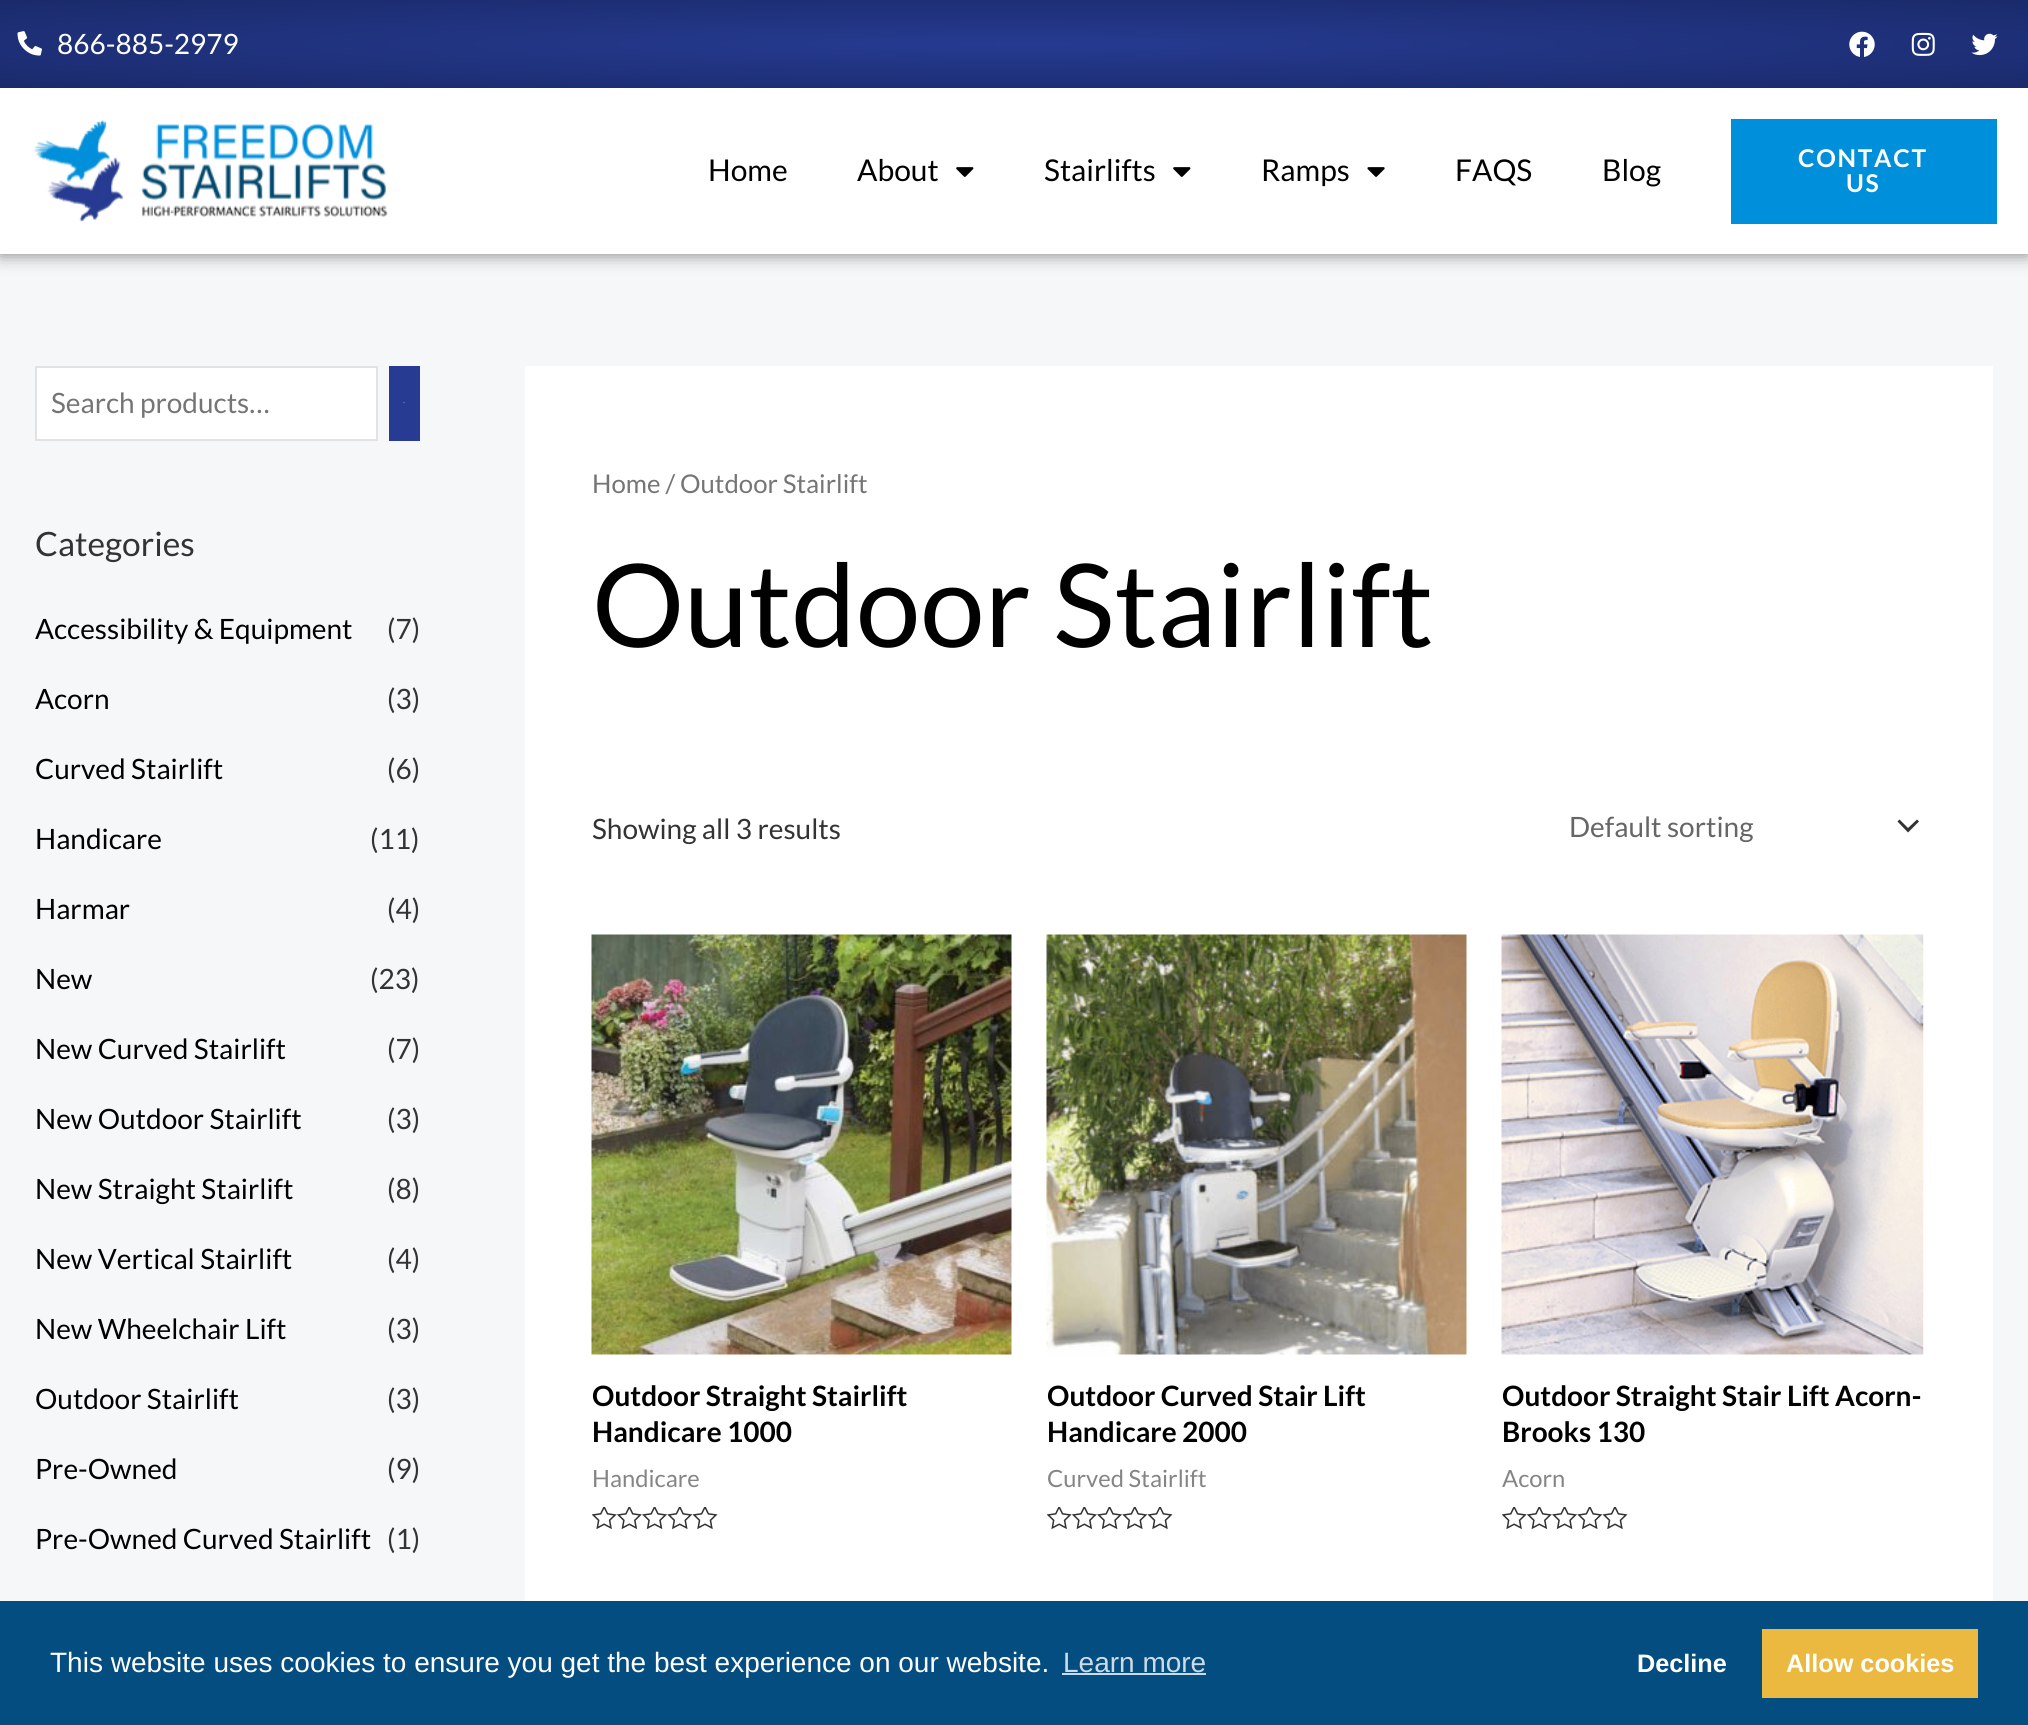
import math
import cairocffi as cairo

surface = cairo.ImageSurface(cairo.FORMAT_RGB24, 2028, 1725)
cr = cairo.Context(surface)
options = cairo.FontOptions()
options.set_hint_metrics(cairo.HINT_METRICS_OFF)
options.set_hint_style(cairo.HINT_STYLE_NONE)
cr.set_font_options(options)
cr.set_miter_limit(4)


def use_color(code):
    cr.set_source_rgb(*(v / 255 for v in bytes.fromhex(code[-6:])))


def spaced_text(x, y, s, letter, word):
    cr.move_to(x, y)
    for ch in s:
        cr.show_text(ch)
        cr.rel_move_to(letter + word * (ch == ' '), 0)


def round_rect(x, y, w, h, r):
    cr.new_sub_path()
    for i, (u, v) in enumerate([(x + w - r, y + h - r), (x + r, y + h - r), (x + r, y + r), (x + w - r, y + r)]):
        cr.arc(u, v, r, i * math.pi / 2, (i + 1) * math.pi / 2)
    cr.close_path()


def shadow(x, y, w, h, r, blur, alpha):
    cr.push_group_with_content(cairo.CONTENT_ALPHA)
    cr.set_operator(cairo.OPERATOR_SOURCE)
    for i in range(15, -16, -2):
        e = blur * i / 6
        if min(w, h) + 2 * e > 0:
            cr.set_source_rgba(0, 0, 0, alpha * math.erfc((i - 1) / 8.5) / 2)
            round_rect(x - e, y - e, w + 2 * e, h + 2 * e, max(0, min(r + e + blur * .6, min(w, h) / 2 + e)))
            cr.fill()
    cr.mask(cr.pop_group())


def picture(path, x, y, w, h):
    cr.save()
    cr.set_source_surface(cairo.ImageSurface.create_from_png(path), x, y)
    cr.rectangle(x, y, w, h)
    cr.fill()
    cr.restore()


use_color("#f5f7f9")
cr.paint()
use_color("#000000")
shadow(0, 0, 2028, 254, 0, 9, 0.5)
gradient = cairo.RadialGradient(0, 0, 0, 0, 0, 1)
gradient.set_matrix(cairo.Matrix(1 / 1434, 0, 0, 1 / 62, -1 * 1014 / 1434, -1 * 44 / 62))
gradient.add_color_stop_rgba(0, 0.149, 0.231, 0.569, 1)
gradient.add_color_stop_rgba(1, 0.102, 0.165, 0.42, 1)
cr.set_source(gradient)
cr.rectangle(0, 0, 2028, 88)
cr.fill()
picture("img1.png", 17, 31, 25, 25)
cr.select_font_face("Lato")
cr.set_font_size(28)
use_color("#ffffff")
cr.move_to(57, 54)
cr.show_text("866-885-2979")
picture("img2.png", 1849, 31, 26, 26)
picture("img3.png", 1911, 32, 24, 24)
picture("img4.png", 1971, 33, 27, 23)
cr.rectangle(0, 88, 2028, 166)
cr.fill()
picture("img5.png", 34, 120, 354, 102)
cr.set_font_size(30)
use_color("#000000")
cr.move_to(708, 181)
cr.show_text("Home")
cr.move_to(857, 181)
cr.show_text("About")
picture("img6.png", 956, 167, 18, 10)
cr.move_to(1044, 181)
cr.show_text("Stairlifts")
picture("img6.png", 1173, 167, 18, 10)
cr.move_to(1261, 181)
cr.show_text("Ramps")
picture("img7.png", 1367, 167, 18, 10)
cr.move_to(1455, 181)
cr.show_text("FAQS")
cr.move_to(1602, 181)
cr.show_text("Blog")
use_color("#0090db")
cr.rectangle(1731, 119, 266, 105)
cr.fill()
cr.select_font_face("Lato", cairo.FONT_SLANT_NORMAL, cairo.FONT_WEIGHT_BOLD)
cr.set_font_size(24.5)
use_color("#ffffff")
spaced_text(1798, 167, "CONTACT", 1.75, 0)
spaced_text(1846, 192, "US", 1.75, 0)
cr.rectangle(36, 367, 341, 73)
cr.fill_preserve()
use_color("#e2e2e2")
cr.stroke()
cr.select_font_face("Lato")
cr.set_font_size(28)
use_color("#757575")
cr.move_to(51, 413)
cr.show_text("Search products…")
use_color("#263b91")
cr.rectangle(389, 366, 31, 75)
cr.fill()
use_color("#ffffff")
cr.new_path()
cr.move_to(403.5, 403.5)
cr.line_to(404, 402.5)
cr.line_to(403.5, 401.5)
cr.line_to(404.5, 402.5)
cr.close_path()
cr.fill()
cr.set_font_size(33.5)
use_color("#333333")
cr.move_to(35, 556)
cr.show_text("Categories")
cr.set_font_size(28)
use_color("#000000")
cr.move_to(35, 639)
cr.show_text("Accessibility & Equipment")
use_color("#333333")
cr.move_to(387, 639)
cr.show_text("(7)")
use_color("#000000")
cr.move_to(35, 709)
cr.show_text("Acorn")
use_color("#333333")
cr.move_to(387, 709)
cr.show_text("(3)")
use_color("#000000")
cr.move_to(35, 779)
cr.show_text("Curved Stairlift")
use_color("#333333")
cr.move_to(387, 779)
cr.show_text("(6)")
use_color("#000000")
cr.move_to(35, 849)
cr.show_text("Handicare")
use_color("#333333")
cr.move_to(370, 849)
cr.show_text("(11)")
use_color("#000000")
cr.move_to(35, 919)
cr.show_text("Harmar")
use_color("#333333")
cr.move_to(387, 919)
cr.show_text("(4)")
use_color("#000000")
cr.move_to(35, 989)
cr.show_text("New")
use_color("#333333")
cr.move_to(370, 989)
cr.show_text("(23)")
use_color("#000000")
cr.move_to(35, 1059)
cr.show_text("New Curved Stairlift")
use_color("#333333")
cr.move_to(387, 1059)
cr.show_text("(7)")
use_color("#000000")
cr.move_to(35, 1129)
cr.show_text("New Outdoor Stairlift")
use_color("#333333")
cr.move_to(387, 1129)
cr.show_text("(3)")
use_color("#000000")
cr.move_to(35, 1199)
cr.show_text("New Straight Stairlift")
use_color("#333333")
cr.move_to(387, 1199)
cr.show_text("(8)")
use_color("#000000")
cr.move_to(35, 1269)
cr.show_text("New Vertical Stairlift")
use_color("#333333")
cr.move_to(387, 1269)
cr.show_text("(4)")
use_color("#000000")
cr.move_to(35, 1339)
cr.show_text("New Wheelchair Lift")
use_color("#333333")
cr.move_to(387, 1339)
cr.show_text("(3)")
use_color("#000000")
cr.move_to(35, 1409)
cr.show_text("Outdoor Stairlift")
use_color("#333333")
cr.move_to(387, 1409)
cr.show_text("(3)")
use_color("#000000")
cr.move_to(35, 1479)
cr.show_text("Pre-Owned")
use_color("#333333")
cr.move_to(387, 1479)
cr.show_text("(9)")
use_color("#000000")
cr.move_to(35, 1549)
cr.show_text("Pre-Owned Curved Stairlift")
use_color("#333333")
cr.move_to(387, 1549)
cr.show_text("(1)")
use_color("#ffffff")
cr.rectangle(525, 366, 1468, 1235)
cr.fill()
cr.set_font_size(25.75)
use_color("#757575")
cr.move_to(592, 493)
cr.show_text("Home / Outdoor Stairlift")
cr.set_font_size(115.5)
use_color("#000000")
cr.move_to(592, 647)
cr.show_text("Outdoor Stairlift")
cr.set_font_size(28)
use_color("#333333")
cr.move_to(592, 839)
cr.show_text("Showing all 3 results")
cr.new_path()
cr.move_to(1897.5, 821.5)
cr.line_to(1908, 832.5)
cr.line_to(1919, 821.5)
cr.line_to(1917, 819.5)
cr.line_to(1908, 828)
cr.line_to(1899.5, 819.5)
cr.close_path()
cr.fill()
use_color("#666666")
cr.move_to(1569, 837)
cr.show_text("Default sorting")
picture("img8.png", 591, 934, 421, 421)
cr.select_font_face("Lato", cairo.FONT_SLANT_NORMAL, cairo.FONT_WEIGHT_BOLD)
use_color("#000000")
cr.move_to(592, 1406)
cr.show_text("Outdoor Straight Stairlift")
cr.move_to(592, 1442)
cr.show_text("Handicare 1000")
cr.select_font_face("Lato")
cr.set_font_size(23.75)
use_color("#858585")
cr.move_to(592, 1487)
cr.show_text("Handicare")
picture("img9.png", 592, 1507, 126, 23)
picture("img10.png", 1046, 934, 421, 421)
cr.select_font_face("Lato", cairo.FONT_SLANT_NORMAL, cairo.FONT_WEIGHT_BOLD)
cr.set_font_size(28)
use_color("#000000")
cr.move_to(1047, 1406)
cr.show_text("Outdoor Curved Stair Lift")
cr.move_to(1047, 1442)
cr.show_text("Handicare 2000")
cr.select_font_face("Lato")
cr.set_font_size(23.75)
use_color("#858585")
cr.move_to(1047, 1487)
cr.show_text("Curved Stairlift")
picture("img9.png", 1047, 1507, 126, 23)
picture("img11.png", 1501, 934, 423, 421)
cr.select_font_face("Lato", cairo.FONT_SLANT_NORMAL, cairo.FONT_WEIGHT_BOLD)
cr.set_font_size(28)
use_color("#000000")
cr.move_to(1502, 1406)
cr.show_text("Outdoor Straight Stair Lift Acorn-")
cr.move_to(1502, 1442)
cr.show_text("Brooks 130")
cr.select_font_face("Lato")
cr.set_font_size(23.75)
use_color("#858585")
cr.move_to(1502, 1487)
cr.show_text("Acorn")
picture("img9.png", 1502, 1507, 126, 23)
use_color("#044d80")
cr.rectangle(0, 1601, 2028, 124)
cr.fill()
cr.select_font_face("Liberation Sans")
cr.set_font_size(28)
use_color("#ffffff")
cr.move_to(50, 1672)
cr.show_text("This website uses cookies to ensure you get the best experience on our website.")
use_color("#cddbe6")
cr.move_to(1063, 1672)
cr.show_text("Learn more")
cr.rectangle(1062, 1673, 144, 2)
cr.fill()
cr.select_font_face("Liberation Sans", cairo.FONT_SLANT_NORMAL, cairo.FONT_WEIGHT_BOLD)
cr.set_font_size(25.25)
use_color("#ffffff")
cr.move_to(1637, 1672)
cr.show_text("Decline")
use_color("#ecb940")
cr.rectangle(1762, 1629, 216, 69)
cr.fill()
use_color("#ffffff")
cr.move_to(1786, 1672)
cr.show_text("Allow cookies")
surface.write_to_png("result.png")
